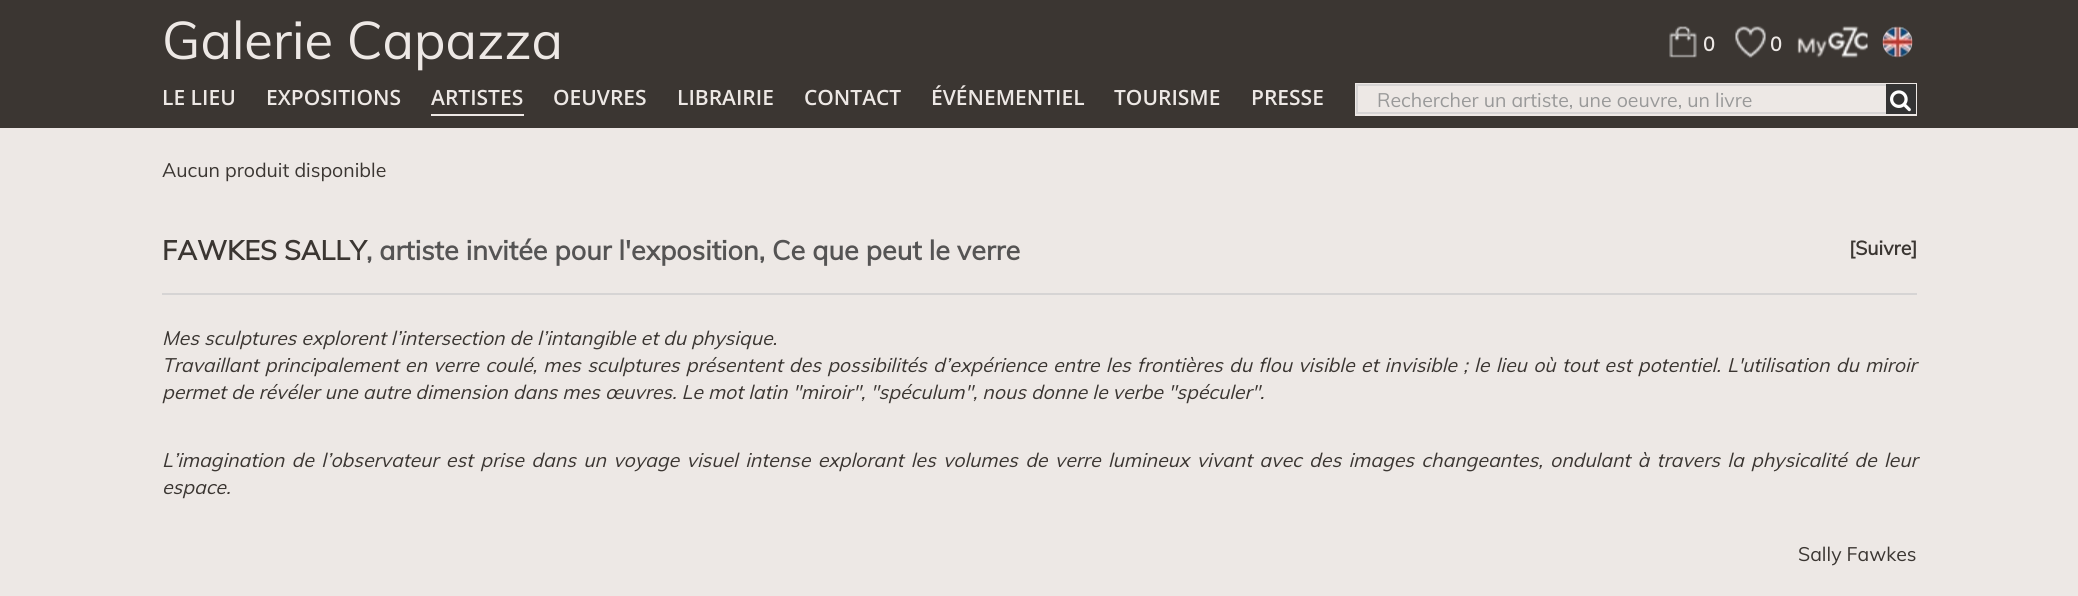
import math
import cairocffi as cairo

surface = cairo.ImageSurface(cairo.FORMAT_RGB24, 2078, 596)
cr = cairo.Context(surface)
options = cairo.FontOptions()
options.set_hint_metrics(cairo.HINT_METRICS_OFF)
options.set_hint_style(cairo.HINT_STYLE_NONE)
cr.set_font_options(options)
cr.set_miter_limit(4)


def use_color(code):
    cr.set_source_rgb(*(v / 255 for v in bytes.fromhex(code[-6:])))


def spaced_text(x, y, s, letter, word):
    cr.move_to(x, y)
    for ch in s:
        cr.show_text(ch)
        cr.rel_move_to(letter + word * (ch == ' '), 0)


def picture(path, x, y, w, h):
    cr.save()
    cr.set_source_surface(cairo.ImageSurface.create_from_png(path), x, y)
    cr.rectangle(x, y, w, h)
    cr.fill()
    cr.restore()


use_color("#ede8e5")
cr.paint()
use_color("#3b3632")
cr.rectangle(0, 0, 2078, 128)
cr.fill()
cr.select_font_face("Muli")
cr.set_font_size(52.5)
use_color("#ede8e5")
cr.move_to(162, 59)
cr.show_text("Galerie Capazza")
picture("img1.png", 1669, 26, 28, 32)
cr.select_font_face("Muli", cairo.FONT_SLANT_NORMAL, cairo.FONT_WEIGHT_BOLD)
cr.set_font_size(19.5)
cr.move_to(1703, 51)
cr.show_text("0")
picture("img2.png", 1735, 26, 31, 32)
cr.move_to(1770, 51)
cr.show_text("0")
picture("img3.png", 1797, 26, 71, 32)
picture("img4.png", 1882, 26, 31, 32)
cr.select_font_face("Open Sans SemiBold")
cr.set_font_size(21)
cr.move_to(162, 105)
cr.show_text("LE LIEU")
cr.move_to(266, 105)
cr.show_text("EXPOSITIONS")
cr.rectangle(431, 114, 93, 2)
cr.fill()
cr.move_to(431, 105)
cr.show_text("ARTISTES")
cr.move_to(553, 105)
cr.show_text("OEUVRES")
cr.move_to(677, 105)
cr.show_text("LIBRAIRIE")
cr.move_to(804, 105)
cr.show_text("CONTACT")
cr.move_to(931, 105)
cr.show_text("ÉVÉNEMENTIEL")
cr.move_to(1114, 105)
cr.show_text("TOURISME")
cr.move_to(1251, 105)
cr.show_text("PRESSE")
cr.rectangle(1356, 84, 560, 31)
cr.stroke()
cr.rectangle(1358, 86, 528, 26)
cr.fill()
cr.rectangle(1357, 85, 553, 28)
use_color("#d6d4d4")
cr.stroke()
cr.select_font_face("Muli")
cr.set_font_size(19.5)
use_color("#999999")
cr.move_to(1377, 107)
cr.show_text("Rechercher un artiste, une oeuvre, un livre")
use_color("#333333")
cr.rectangle(1886, 84, 30, 30)
cr.fill()
picture("img5.png", 1890, 90, 21, 22)
use_color("#3b3632")
cr.move_to(162, 177)
cr.show_text("Aucun produit disponible")
cr.select_font_face("Muli", cairo.FONT_SLANT_NORMAL, cairo.FONT_WEIGHT_BOLD)
cr.set_font_size(27)
cr.move_to(162, 260)
cr.show_text("FAWKES SALLY")
use_color("#555454")
cr.move_to(366, 260)
cr.show_text(", artiste invitée pour l'exposition, Ce que peut le verre")
cr.set_font_size(19.5)
use_color("#3b3632")
cr.move_to(1849, 255)
cr.show_text("[Suivre]")
use_color("#d6d4d4")
cr.rectangle(162, 293, 1755, 2)
cr.fill()
cr.select_font_face("Muli", cairo.FONT_SLANT_ITALIC)
use_color("#3b3632")
cr.move_to(162, 345)
cr.show_text("Mes sculptures explorent l’intersection de l’intangible et du physique.")
spaced_text(162, 372, "Travaillant principalement en verre coulé, mes sculptures présentent des possibilités d’expérience entre les frontières du flou visible et invisible ; le lieu où tout est potentiel. L'utilisation du miroir", 0, 1.25)
cr.move_to(162, 399)
cr.show_text("permet de révéler une autre dimension dans mes œuvres. Le mot latin \"miroir\", \"spéculum\", nous donne le verbe \"spéculer\".")
spaced_text(162, 467, "L’imagination de l’observateur est prise dans un voyage visuel intense explorant les volumes de verre lumineux vivant avec des images changeantes, ondulant à travers la physicalité de leur", 0, 2.3)
cr.move_to(162, 494)
cr.show_text("espace.")
cr.select_font_face("Muli")
cr.move_to(1798, 561)
cr.show_text("Sally Fawkes")
surface.write_to_png("result.png")
